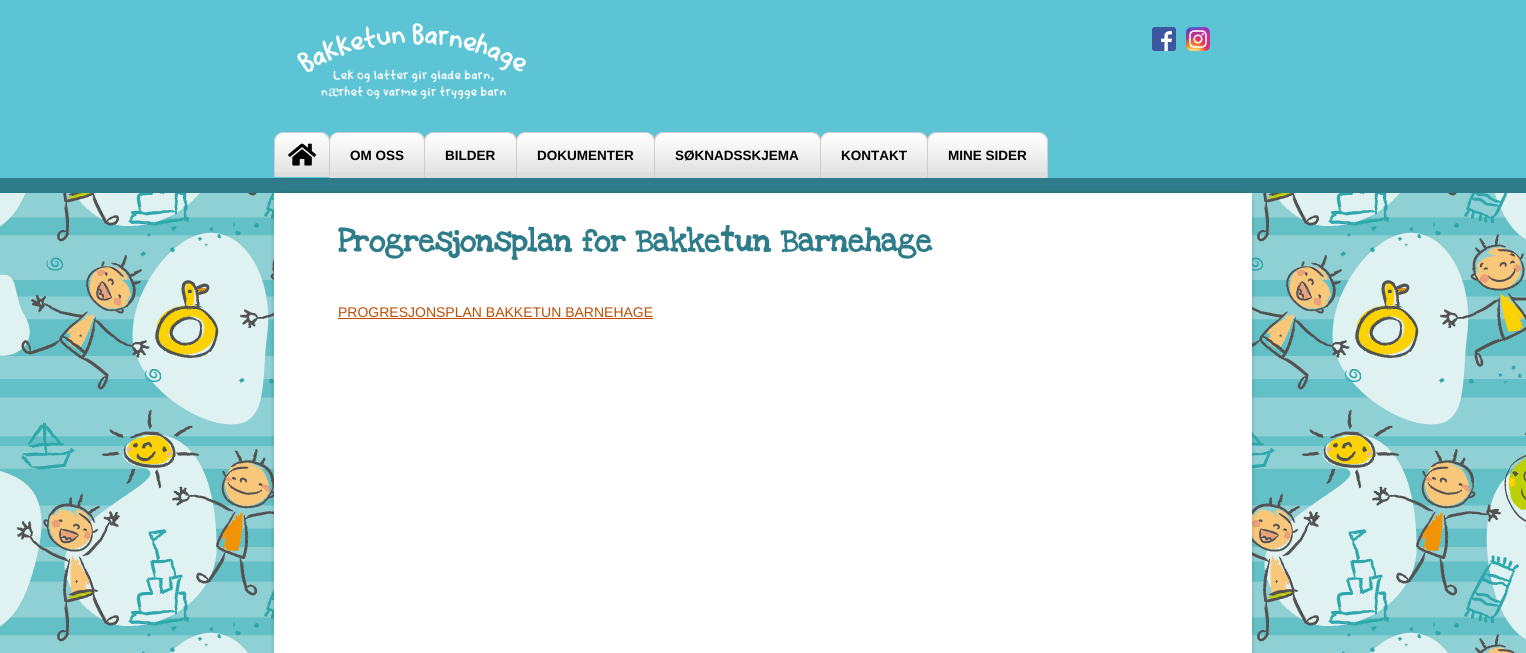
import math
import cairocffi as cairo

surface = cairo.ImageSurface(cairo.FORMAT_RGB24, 1526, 653)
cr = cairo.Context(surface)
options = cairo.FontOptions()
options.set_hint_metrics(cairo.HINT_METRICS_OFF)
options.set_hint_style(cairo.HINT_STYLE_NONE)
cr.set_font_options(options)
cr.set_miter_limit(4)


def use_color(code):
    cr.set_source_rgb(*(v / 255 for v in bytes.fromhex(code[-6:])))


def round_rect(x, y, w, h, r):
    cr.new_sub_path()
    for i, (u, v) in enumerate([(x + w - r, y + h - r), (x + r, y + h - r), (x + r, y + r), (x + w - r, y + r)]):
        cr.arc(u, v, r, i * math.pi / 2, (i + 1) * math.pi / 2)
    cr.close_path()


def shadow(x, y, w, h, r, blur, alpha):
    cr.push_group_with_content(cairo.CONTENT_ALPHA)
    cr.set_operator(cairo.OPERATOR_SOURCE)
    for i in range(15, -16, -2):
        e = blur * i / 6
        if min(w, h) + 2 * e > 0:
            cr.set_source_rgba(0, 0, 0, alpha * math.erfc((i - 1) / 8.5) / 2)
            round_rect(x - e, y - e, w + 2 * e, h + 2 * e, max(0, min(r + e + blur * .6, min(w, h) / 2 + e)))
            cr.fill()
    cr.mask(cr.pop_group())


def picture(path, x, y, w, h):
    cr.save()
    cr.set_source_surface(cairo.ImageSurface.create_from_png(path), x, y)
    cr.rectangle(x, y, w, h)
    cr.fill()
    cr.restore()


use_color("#ffffff")
cr.paint()
picture("img1.png", 0, 193, 1526, 460)
use_color("#5dc4d6")
cr.rectangle(0, 0, 1526, 178)
cr.fill()
use_color("#2e7c89")
cr.rectangle(0, 178, 1526, 15)
cr.fill()
picture("img2.png", 297, 23, 229, 76)
picture("img3.png", 1152, 27, 24, 24)
picture("img4.png", 1186, 27, 24, 24)
use_color("#dedede")
cr.new_path()
cr.move_to(284, 132)
cr.line_to(320, 132)
cr.curve_to(325.5, 132, 330, 136.5, 330, 142)
cr.line_to(330, 177)
cr.line_to(274, 177)
cr.line_to(274, 142)
cr.curve_to(274, 136.5, 278.5, 132, 284, 132)
cr.close_path()
cr.fill()
picture("img5.png", 274, 133, 56, 39)
use_color("#cdcdcd")
cr.set_fill_rule(cairo.FILL_RULE_EVEN_ODD)
cr.new_path()
cr.move_to(284, 132)
cr.line_to(320, 132)
cr.curve_to(326, 132, 330, 136, 330, 142)
cr.line_to(330, 177)
cr.line_to(274, 177)
cr.line_to(274, 142)
cr.curve_to(274, 136, 278, 132, 284, 132)
cr.close_path()
cr.move_to(284, 133)
cr.line_to(320, 133)
cr.curve_to(325, 133, 329, 137, 329, 142)
cr.line_to(329, 177)
cr.line_to(275, 177)
cr.line_to(275, 142)
cr.curve_to(275, 137, 279, 133, 284, 133)
cr.close_path()
cr.fill()
picture("img6.png", 288, 143, 29, 23)
use_color("#dedede")
cr.new_path()
cr.move_to(339, 132)
cr.line_to(415, 132)
cr.curve_to(420.5, 132, 425, 136.5, 425, 142)
cr.line_to(425, 178)
cr.line_to(329, 178)
cr.line_to(329, 142)
cr.curve_to(329, 136.5, 333.5, 132, 339, 132)
cr.close_path()
cr.fill()
picture("img7.png", 329, 133, 96, 39)
use_color("#cdcdcd")
cr.new_path()
cr.move_to(339, 132)
cr.line_to(415, 132)
cr.curve_to(421, 132, 425, 136, 425, 142)
cr.line_to(425, 178)
cr.line_to(329, 178)
cr.line_to(329, 142)
cr.curve_to(329, 136, 333, 132, 339, 132)
cr.close_path()
cr.move_to(339, 133)
cr.line_to(415, 133)
cr.curve_to(420, 133, 424, 137, 424, 142)
cr.line_to(424, 178)
cr.line_to(330, 178)
cr.line_to(330, 142)
cr.curve_to(330, 137, 334, 133, 339, 133)
cr.close_path()
cr.fill()
cr.select_font_face("Liberation Sans", cairo.FONT_SLANT_NORMAL, cairo.FONT_WEIGHT_BOLD)
cr.set_font_size(13.5)
use_color("#000000")
cr.move_to(350, 160)
cr.show_text("OM OSS")
use_color("#dedede")
cr.new_path()
cr.move_to(434, 132)
cr.line_to(507, 132)
cr.curve_to(512.5, 132, 517, 136.5, 517, 142)
cr.line_to(517, 178)
cr.line_to(424, 178)
cr.line_to(424, 142)
cr.curve_to(424, 136.5, 428.5, 132, 434, 132)
cr.close_path()
cr.fill()
picture("img8.png", 424, 133, 93, 39)
use_color("#cdcdcd")
cr.new_path()
cr.move_to(434, 132)
cr.line_to(507, 132)
cr.curve_to(513, 132, 517, 136, 517, 142)
cr.line_to(517, 178)
cr.line_to(424, 178)
cr.line_to(424, 142)
cr.curve_to(424, 136, 428, 132, 434, 132)
cr.close_path()
cr.move_to(434, 133)
cr.line_to(507, 133)
cr.curve_to(512, 133, 516, 137, 516, 142)
cr.line_to(516, 178)
cr.line_to(425, 178)
cr.line_to(425, 142)
cr.curve_to(425, 137, 429, 133, 434, 133)
cr.close_path()
cr.fill()
use_color("#000000")
cr.move_to(445, 160)
cr.show_text("BILDER")
use_color("#dedede")
cr.new_path()
cr.move_to(526, 132)
cr.line_to(645, 132)
cr.curve_to(650.5, 132, 655, 136.5, 655, 142)
cr.line_to(655, 178)
cr.line_to(516, 178)
cr.line_to(516, 142)
cr.curve_to(516, 136.5, 520.5, 132, 526, 132)
cr.close_path()
cr.fill()
picture("img9.png", 516, 133, 139, 39)
use_color("#cdcdcd")
cr.new_path()
cr.move_to(526, 132)
cr.line_to(645, 132)
cr.curve_to(651, 132, 655, 136, 655, 142)
cr.line_to(655, 178)
cr.line_to(516, 178)
cr.line_to(516, 142)
cr.curve_to(516, 136, 520, 132, 526, 132)
cr.close_path()
cr.move_to(526, 133)
cr.line_to(645, 133)
cr.curve_to(650, 133, 654, 137, 654, 142)
cr.line_to(654, 178)
cr.line_to(517, 178)
cr.line_to(517, 142)
cr.curve_to(517, 137, 521, 133, 526, 133)
cr.close_path()
cr.fill()
use_color("#000000")
cr.move_to(537, 160)
cr.show_text("DOKUMENTER")
use_color("#dedede")
cr.new_path()
cr.move_to(664, 132)
cr.line_to(811, 132)
cr.curve_to(816.5, 132, 821, 136.5, 821, 142)
cr.line_to(821, 178)
cr.line_to(654, 178)
cr.line_to(654, 142)
cr.curve_to(654, 136.5, 658.5, 132, 664, 132)
cr.close_path()
cr.fill()
picture("img10.png", 654, 133, 167, 39)
use_color("#cdcdcd")
cr.new_path()
cr.move_to(664, 132)
cr.line_to(811, 132)
cr.curve_to(817, 132, 821, 136, 821, 142)
cr.line_to(821, 178)
cr.line_to(654, 178)
cr.line_to(654, 142)
cr.curve_to(654, 136, 658, 132, 664, 132)
cr.close_path()
cr.move_to(664, 133)
cr.line_to(811, 133)
cr.curve_to(816, 133, 820, 137, 820, 142)
cr.line_to(820, 178)
cr.line_to(655, 178)
cr.line_to(655, 142)
cr.curve_to(655, 137, 659, 133, 664, 133)
cr.close_path()
cr.fill()
use_color("#000000")
cr.move_to(675, 160)
cr.show_text("SØKNADSSKJEMA")
use_color("#dedede")
cr.new_path()
cr.move_to(830, 132)
cr.line_to(918, 132)
cr.curve_to(923.5, 132, 928, 136.5, 928, 142)
cr.line_to(928, 178)
cr.line_to(820, 178)
cr.line_to(820, 142)
cr.curve_to(820, 136.5, 824.5, 132, 830, 132)
cr.close_path()
cr.fill()
picture("img11.png", 820, 133, 108, 39)
use_color("#cdcdcd")
cr.new_path()
cr.move_to(830, 132)
cr.line_to(918, 132)
cr.curve_to(924, 132, 928, 136, 928, 142)
cr.line_to(928, 178)
cr.line_to(820, 178)
cr.line_to(820, 142)
cr.curve_to(820, 136, 824, 132, 830, 132)
cr.close_path()
cr.move_to(830, 133)
cr.line_to(918, 133)
cr.curve_to(923, 133, 927, 137, 927, 142)
cr.line_to(927, 178)
cr.line_to(821, 178)
cr.line_to(821, 142)
cr.curve_to(821, 137, 825, 133, 830, 133)
cr.close_path()
cr.fill()
use_color("#000000")
cr.move_to(841, 160)
cr.show_text("KONTAKT")
use_color("#dedede")
cr.new_path()
cr.move_to(937, 132)
cr.line_to(1038, 132)
cr.curve_to(1043.5, 132, 1048, 136.5, 1048, 142)
cr.line_to(1048, 178)
cr.line_to(927, 178)
cr.line_to(927, 142)
cr.curve_to(927, 136.5, 931.5, 132, 937, 132)
cr.close_path()
cr.fill()
picture("img12.png", 927, 133, 121, 39)
use_color("#cdcdcd")
cr.new_path()
cr.move_to(937, 132)
cr.line_to(1038, 132)
cr.curve_to(1044, 132, 1048, 136, 1048, 142)
cr.line_to(1048, 178)
cr.line_to(927, 178)
cr.line_to(927, 142)
cr.curve_to(927, 136, 931, 132, 937, 132)
cr.close_path()
cr.move_to(937, 133)
cr.line_to(1038, 133)
cr.curve_to(1043, 133, 1047, 137, 1047, 142)
cr.line_to(1047, 178)
cr.line_to(928, 178)
cr.line_to(928, 142)
cr.curve_to(928, 137, 932, 133, 937, 133)
cr.close_path()
cr.fill()
use_color("#000000")
cr.move_to(948, 160)
cr.show_text("MINE SIDER")
use_color("#000000")
shadow(274, 193, 978, 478, 10, 2.5, 0.2)
use_color("#ffffff")
cr.rectangle(274, 193, 978, 460)
cr.fill()
cr.select_font_face("Love Ya Like A Sister", cairo.FONT_SLANT_NORMAL, cairo.FONT_WEIGHT_BOLD)
cr.set_font_size(32)
use_color("#2e7c89")
cr.move_to(338, 251)
cr.show_text("Progresjonsplan for Bakketun Barnehage")
cr.select_font_face("Liberation Sans")
cr.set_font_size(14)
use_color("#bf4c00")
cr.move_to(338, 317)
cr.show_text("PROGRESJONSPLAN BAKKETUN BARNEHAGE")
cr.rectangle(338, 318, 315, 1)
cr.fill()
surface.write_to_png("result.png")
